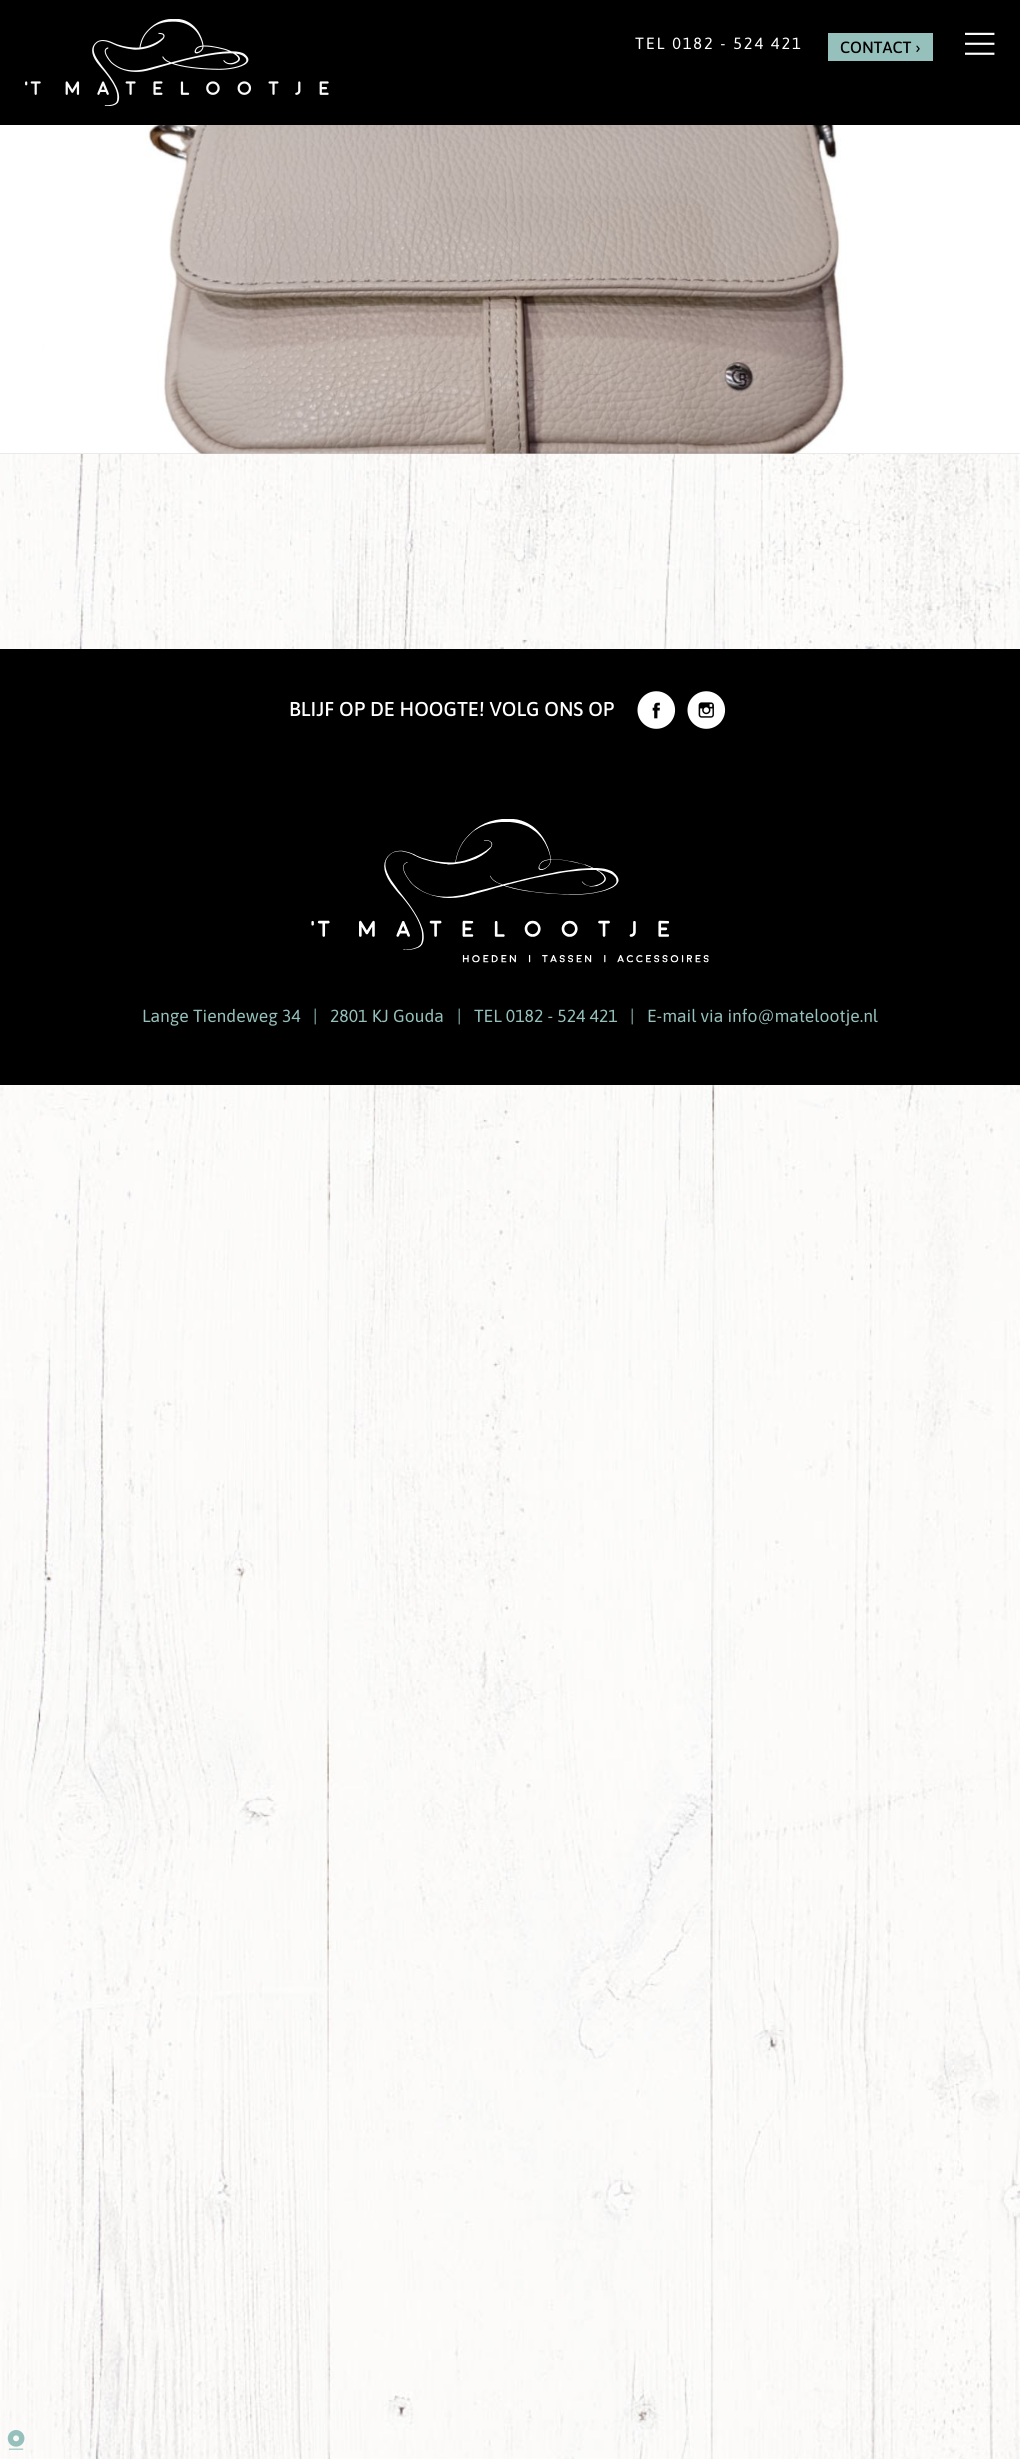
import math
import cairocffi as cairo

surface = cairo.ImageSurface(cairo.FORMAT_RGB24, 1020, 2459)
cr = cairo.Context(surface)
options = cairo.FontOptions()
options.set_hint_metrics(cairo.HINT_METRICS_OFF)
options.set_hint_style(cairo.HINT_STYLE_NONE)
cr.set_font_options(options)
cr.set_miter_limit(4)


def use_color(code):
    cr.set_source_rgb(*(v / 255 for v in bytes.fromhex(code[-6:])))


def spaced_text(x, y, s, letter, word):
    cr.move_to(x, y)
    for ch in s:
        cr.show_text(ch)
        cr.rel_move_to(letter + word * (ch == ' '), 0)


def picture(path, x, y, w, h):
    cr.save()
    cr.set_source_surface(cairo.ImageSurface.create_from_png(path), x, y)
    cr.rectangle(x, y, w, h)
    cr.fill()
    cr.restore()


use_color("#ffffff")
cr.paint()
picture("img1.png", 0, 454, 1020, 2005)
use_color("#000000")
cr.rectangle(0, 0, 1020, 125)
cr.fill()
picture("img2.png", 25, 19, 304, 87)
cr.select_font_face("Asap")
cr.set_font_size(16.25)
use_color("#ffffff")
spaced_text(635, 49, "TEL 0182 - 524 421", 1.9, 0)
use_color("#96c0bb")
cr.rectangle(828, 33, 105, 28)
cr.fill()
cr.select_font_face("Asap Medium")
use_color("#000000")
cr.move_to(840, 53)
cr.show_text("CONTACT ›")
picture("img3.png", 965, 32, 30, 23)
use_color("#cecece")
cr.rectangle(0, 453, 1020, 1)
cr.fill()
picture("img4.png", 0, 125, 1020, 329)
use_color("#000000")
cr.rectangle(0, 649, 1020, 436)
cr.fill()
cr.set_font_size(20)
use_color("#ffffff")
cr.move_to(289, 716)
cr.show_text("BLIJF OP DE HOOGTE! VOLG ONS OP")
picture("img5.png", 637, 691, 39, 38)
picture("img6.png", 687, 691, 39, 38)
picture("img7.png", 311, 819, 398, 144)
cr.select_font_face("Asap")
cr.set_font_size(17.5)
use_color("#96c0bb")
cr.move_to(142, 1022)
cr.show_text("Lange Tiendeweg 34")
cr.move_to(313, 1022)
cr.show_text("|")
cr.move_to(330, 1022)
cr.show_text("2801 KJ Gouda")
cr.move_to(457, 1022)
cr.show_text("|")
cr.move_to(474, 1022)
cr.show_text("TEL 0182 - 524 421")
cr.move_to(630, 1022)
cr.show_text("|")
cr.move_to(647, 1022)
cr.show_text("E-mail via info@matelootje.nl")
picture("img8.png", 7, 2430, 18, 20)
surface.write_to_png("result.png")
